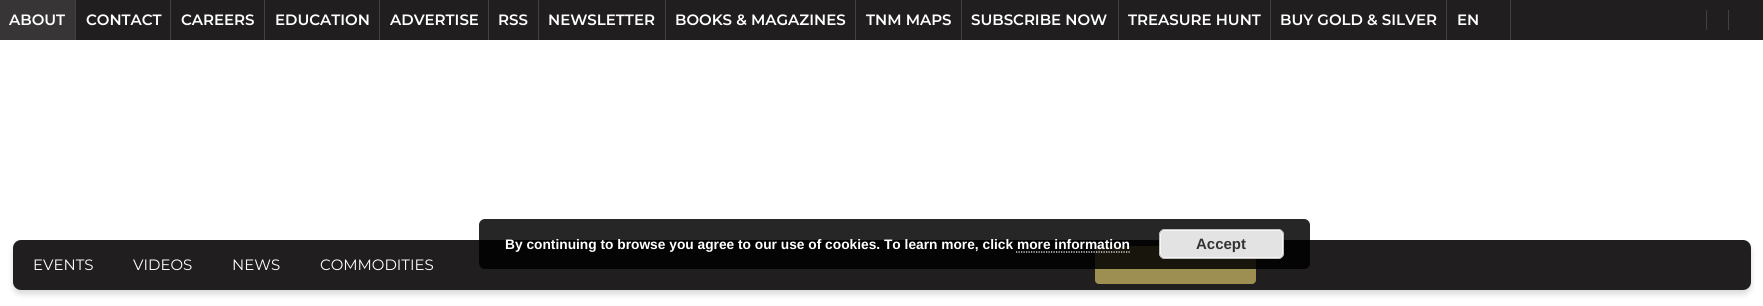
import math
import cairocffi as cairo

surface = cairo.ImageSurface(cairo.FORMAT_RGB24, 1763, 306)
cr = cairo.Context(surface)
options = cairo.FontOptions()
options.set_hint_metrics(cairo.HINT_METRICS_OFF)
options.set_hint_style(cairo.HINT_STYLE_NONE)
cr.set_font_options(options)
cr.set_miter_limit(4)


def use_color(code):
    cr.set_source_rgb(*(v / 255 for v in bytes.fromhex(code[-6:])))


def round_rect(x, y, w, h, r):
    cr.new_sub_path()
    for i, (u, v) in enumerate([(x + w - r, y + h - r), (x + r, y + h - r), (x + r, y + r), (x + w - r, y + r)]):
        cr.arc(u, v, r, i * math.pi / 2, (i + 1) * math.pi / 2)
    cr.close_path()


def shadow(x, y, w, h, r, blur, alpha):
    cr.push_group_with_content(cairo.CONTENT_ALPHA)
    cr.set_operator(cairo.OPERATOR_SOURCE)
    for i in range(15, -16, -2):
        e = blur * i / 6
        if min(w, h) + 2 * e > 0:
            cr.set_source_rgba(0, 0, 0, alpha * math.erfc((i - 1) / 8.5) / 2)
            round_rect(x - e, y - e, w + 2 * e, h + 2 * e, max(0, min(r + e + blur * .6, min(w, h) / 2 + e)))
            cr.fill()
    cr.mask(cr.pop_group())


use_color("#ffffff")
cr.paint()
use_color("#201e1e")
cr.rectangle(76, 0, 1687, 40)
cr.fill()
use_color("#373535")
cr.rectangle(0, 0, 75, 40)
cr.fill()
cr.select_font_face("Montserrat SemiBold")
cr.set_font_size(15)
use_color("#ffffff")
cr.move_to(9, 25)
cr.show_text("ABOUT")
use_color("#424242")
cr.rectangle(75, 0, 1, 40)
cr.fill()
use_color("#ffffff")
cr.move_to(86, 25)
cr.show_text("CONTACT")
use_color("#424242")
cr.rectangle(170, 0, 1, 40)
cr.fill()
use_color("#ffffff")
cr.move_to(181, 25)
cr.show_text("CAREERS")
use_color("#424242")
cr.rectangle(264, 0, 1, 40)
cr.fill()
use_color("#ffffff")
cr.move_to(275, 25)
cr.show_text("EDUCATION")
use_color("#424242")
cr.rectangle(379, 0, 1, 40)
cr.fill()
use_color("#ffffff")
cr.move_to(390, 25)
cr.show_text("ADVERTISE")
use_color("#424242")
cr.rectangle(488, 0, 1, 40)
cr.fill()
use_color("#ffffff")
cr.move_to(498, 25)
cr.show_text("RSS")
use_color("#424242")
cr.rectangle(538, 0, 1, 40)
cr.fill()
use_color("#ffffff")
cr.move_to(548, 25)
cr.show_text("NEWSLETTER")
use_color("#424242")
cr.rectangle(665, 0, 1, 40)
cr.fill()
use_color("#ffffff")
cr.move_to(675, 25)
cr.show_text("BOOKS & MAGAZINES")
use_color("#424242")
cr.rectangle(855, 0, 1, 40)
cr.fill()
use_color("#ffffff")
cr.move_to(866, 25)
cr.show_text("TNM MAPS")
use_color("#424242")
cr.rectangle(961, 0, 1, 40)
cr.fill()
use_color("#ffffff")
cr.move_to(971, 25)
cr.show_text("SUBSCRIBE NOW")
use_color("#424242")
cr.rectangle(1118, 0, 1, 40)
cr.fill()
use_color("#ffffff")
cr.move_to(1128, 25)
cr.show_text("TREASURE HUNT")
use_color("#424242")
cr.rectangle(1270, 0, 1, 40)
cr.fill()
use_color("#ffffff")
cr.move_to(1280, 25)
cr.show_text("BUY GOLD & SILVER")
use_color("#424242")
cr.rectangle(1510, 0, 1, 40)
cr.fill()
cr.rectangle(1446, 0, 1, 40)
cr.fill()
use_color("#ffffff")
cr.move_to(1457, 25)
cr.show_text("EN")
use_color("#424242")
cr.rectangle(1706, 10, 1, 20)
cr.fill()
cr.rectangle(1728, 10, 1, 20)
cr.fill()
use_color("#000000")
shadow(13, 244, 1738, 50, 8, 3, 0.15)
use_color("#201e1e")
round_rect(13, 240, 1738, 50, 8)
cr.fill()
use_color("#9d8e51")
round_rect(1095, 246, 161, 38, 4)
cr.fill()
cr.set_source_rgba(0, 0, 0, 0.85)
round_rect(479, 219, 831, 50, 6)
cr.fill()
cr.select_font_face("Liberation Sans", cairo.FONT_SLANT_NORMAL, cairo.FONT_WEIGHT_BOLD)
cr.set_font_size(13.75)
use_color("#ffffff")
cr.move_to(505, 249)
cr.show_text("By continuing to browse you agree to our use of cookies. To learn more, click more information")
use_color("#e3e3e3")
round_rect(1159, 229, 125, 30, 6)
cr.fill()
round_rect(1160.5, 230.5, 122, 27, 4.5)
use_color("#f6f6f6")
cr.set_line_width(1)
cr.stroke()
round_rect(1159.5, 229.5, 124, 29, 5.5)
use_color("#bbbbbb")
cr.stroke()
cr.set_font_size(15)
use_color("#333333")
cr.move_to(1196, 249)
cr.show_text("Accept")
cr.new_path()
cr.move_to(1016, 252)
cr.line_to(1130, 252)
use_color("#ffffff")
cr.set_line_width(1.2)
cr.set_dash([1.25, 1.25])
cr.stroke()
cr.select_font_face("Montserrat")
cr.move_to(33, 270)
cr.show_text("EVENTS")
cr.move_to(133, 270)
cr.show_text("VIDEOS")
cr.move_to(232, 270)
cr.show_text("NEWS")
cr.move_to(320, 270)
cr.show_text("COMMODITIES")
surface.write_to_png("result.png")
